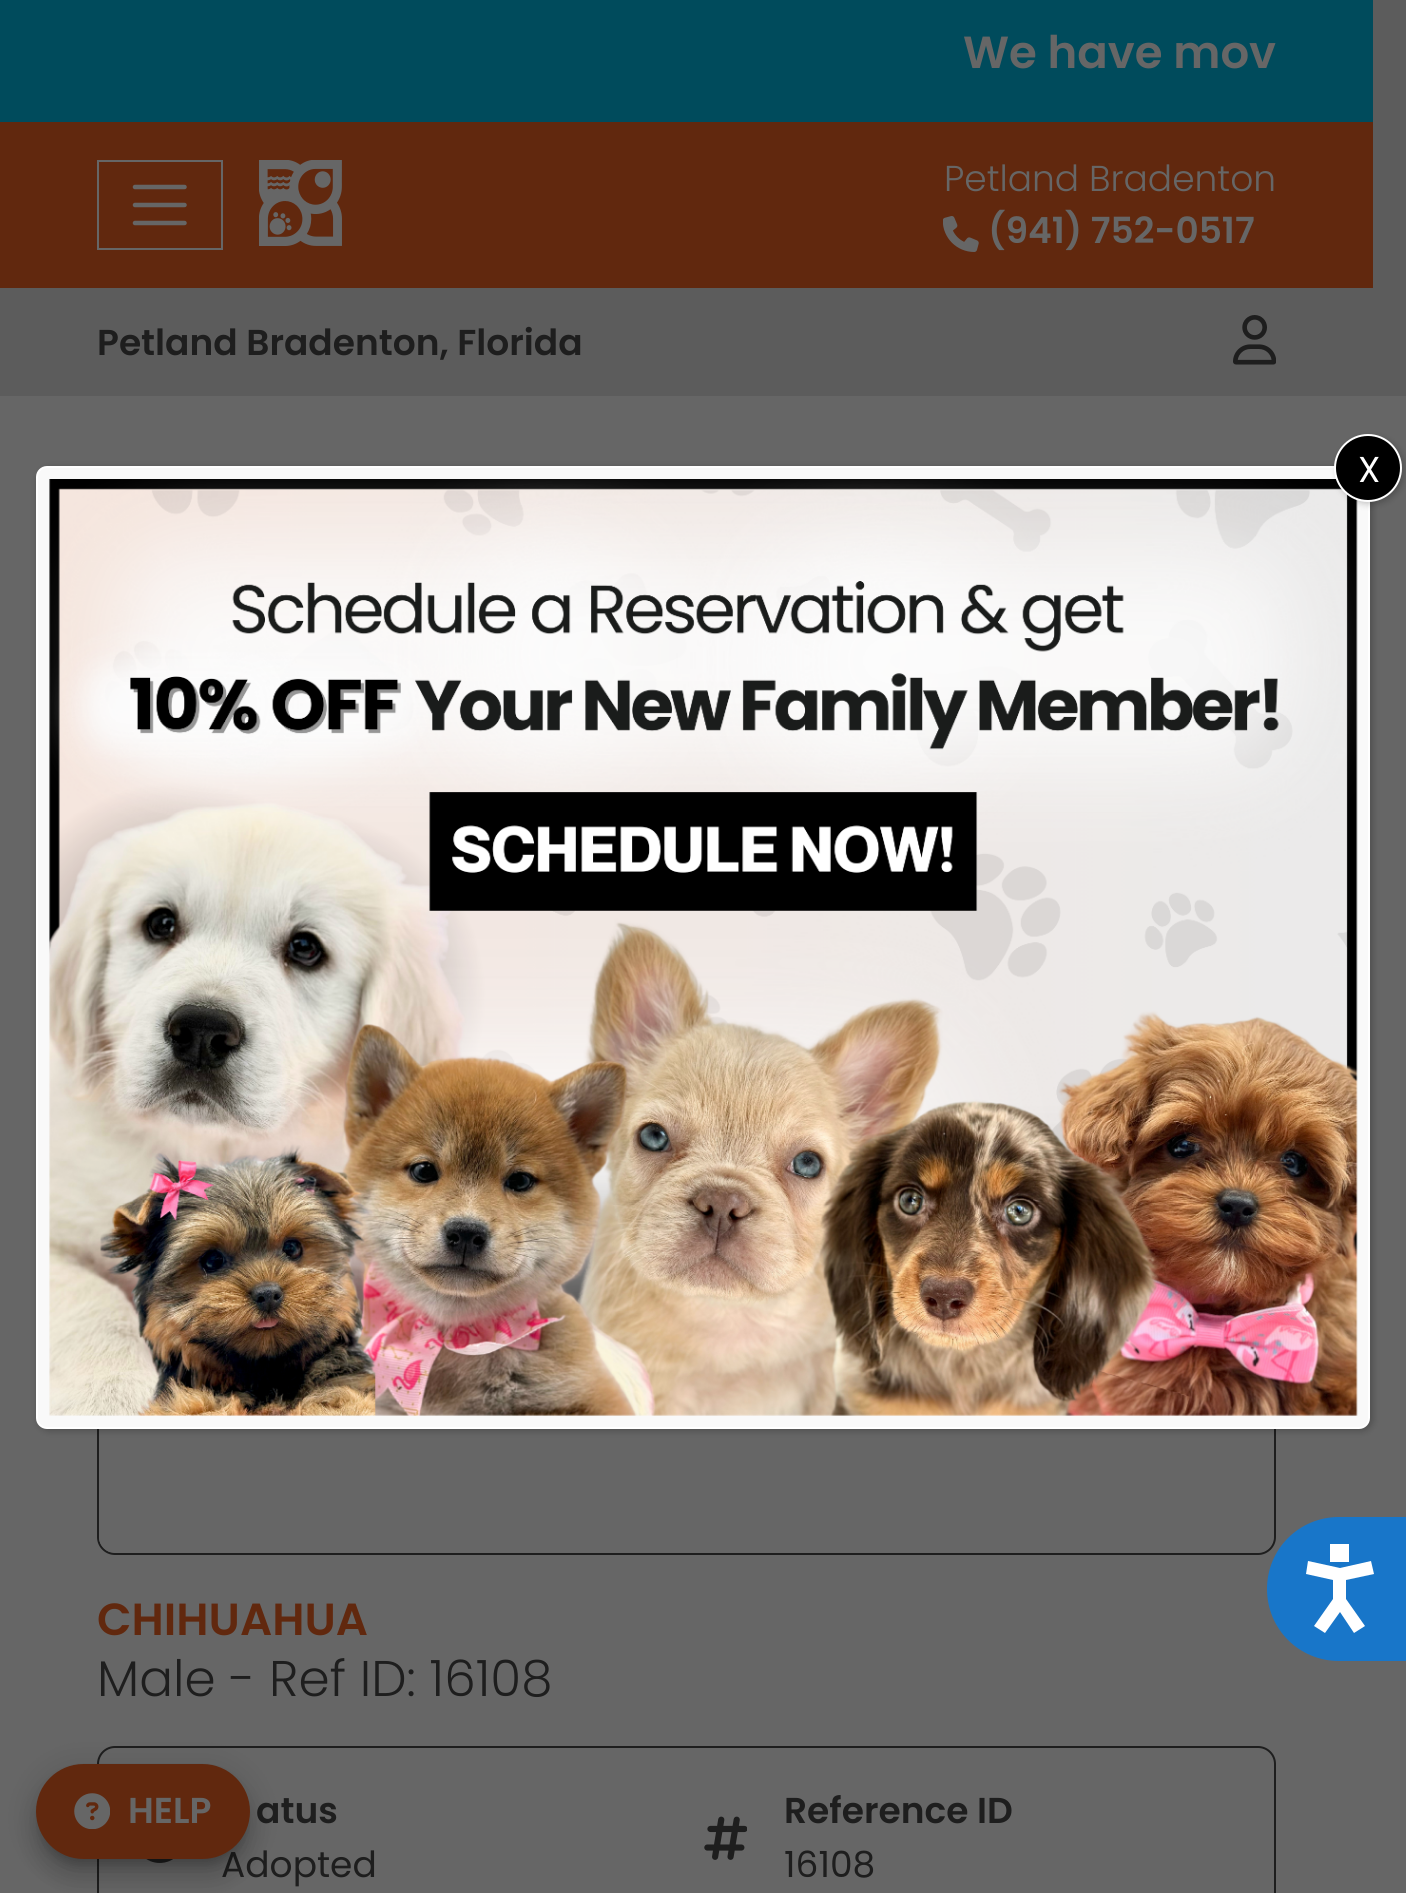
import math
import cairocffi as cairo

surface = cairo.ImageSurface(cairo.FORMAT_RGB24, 1406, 1893)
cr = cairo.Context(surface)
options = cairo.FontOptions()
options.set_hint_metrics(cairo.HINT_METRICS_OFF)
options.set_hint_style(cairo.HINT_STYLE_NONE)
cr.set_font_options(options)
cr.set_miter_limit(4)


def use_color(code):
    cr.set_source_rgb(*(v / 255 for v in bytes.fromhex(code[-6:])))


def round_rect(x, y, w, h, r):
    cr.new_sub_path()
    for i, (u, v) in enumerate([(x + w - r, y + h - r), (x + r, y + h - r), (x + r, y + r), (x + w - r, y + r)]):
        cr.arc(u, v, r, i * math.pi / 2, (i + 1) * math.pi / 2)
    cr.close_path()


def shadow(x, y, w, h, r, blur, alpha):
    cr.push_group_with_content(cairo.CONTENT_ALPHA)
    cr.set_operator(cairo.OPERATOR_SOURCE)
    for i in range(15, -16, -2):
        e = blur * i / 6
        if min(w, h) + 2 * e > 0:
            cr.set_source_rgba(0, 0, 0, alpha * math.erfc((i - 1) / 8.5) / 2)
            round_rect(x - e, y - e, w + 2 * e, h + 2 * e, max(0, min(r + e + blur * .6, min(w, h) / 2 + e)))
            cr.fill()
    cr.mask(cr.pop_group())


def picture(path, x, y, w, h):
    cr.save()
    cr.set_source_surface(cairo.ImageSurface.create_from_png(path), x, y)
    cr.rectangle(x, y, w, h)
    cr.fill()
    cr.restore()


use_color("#666666")
cr.paint()
use_color("#5c5c5c")
cr.rectangle(0, 0, 1406, 396)
cr.fill()
use_color("#004b5c")
cr.rectangle(0, 0, 1373, 122)
cr.fill()
cr.select_font_face("Poppins SemiBold")
cr.set_font_size(45)
use_color("#666666")
cr.move_to(963, 68)
cr.show_text("We have mov")
use_color("#61280e")
cr.rectangle(0, 122, 1373, 166)
cr.fill()
cr.rectangle(98, 161, 124, 88)
use_color("#666666")
cr.stroke()
cr.new_path()
cr.move_to(135, 187)
cr.line_to(184.5, 187)
cr.move_to(135, 205)
cr.line_to(184.5, 205)
cr.move_to(135, 223)
cr.line_to(184.5, 223)
cr.set_line_width(4.5)
cr.set_line_cap(cairo.LINE_CAP_ROUND)
cr.stroke()
picture("img1.png", 259, 160, 83, 86)
cr.select_font_face("Poppins Light")
cr.set_font_size(36)
cr.move_to(944, 191)
cr.show_text("Petland Bradenton")
picture("img2.png", 943, 216, 36, 36)
cr.select_font_face("Poppins SemiBold")
cr.move_to(988, 243)
cr.show_text("(941) 752-0517")
use_color("#1e1e1e")
cr.move_to(97, 355)
cr.show_text("Petland Bradenton, Florida")
picture("img3.png", 1233, 315, 43, 50)
round_rect(98, 669, 1177, 885, 17)
cr.set_line_width(2)
cr.set_line_cap(cairo.LINE_CAP_BUTT)
cr.stroke()
picture("img5.png", 99, 1429, 1175, 124)
use_color("#020202")
shadow(38, 468, 1335, 963, 11, 3.5, 0.23)
use_color("#f9f9f9")
round_rect(37, 467, 1332, 961, 10)
cr.fill_preserve()
use_color("#ffffff")
cr.stroke()
picture("img4.png", 49, 479, 1309, 937)
use_color("#020202")
shadow(1337, 437, 67, 67, 33.5, 3.5, 0.23)
use_color("#000000")
cr.arc(1368, 468, 33, 0, 2 * math.pi)
cr.fill_preserve()
use_color("#ffffff")
cr.stroke()
cr.select_font_face("Poppins")
cr.move_to(1358, 482)
cr.show_text("X")
cr.select_font_face("Poppins SemiBold")
cr.set_font_size(45)
use_color("#61280e")
cr.move_to(97, 1635)
cr.show_text("CHIHUAHUA")
cr.select_font_face("Poppins Light")
cr.set_font_size(50.1)
use_color("#1e1e1e")
cr.move_to(97, 1696)
cr.show_text("Male - Ref ID: 16108")
round_rect(98, 1747, 1177, 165, 17)
cr.stroke()
picture("img6.png", 146, 1859, 27, 4)
cr.select_font_face("Poppins SemiBold")
cr.set_font_size(36)
cr.move_to(256, 1823)
cr.show_text("atus")
cr.select_font_face("Poppins")
cr.move_to(221, 1877)
cr.show_text("Adopted")
picture("img7.png", 704, 1816, 43, 44)
cr.select_font_face("Poppins SemiBold")
cr.move_to(784, 1823)
cr.show_text("Reference ID")
cr.select_font_face("Poppins")
cr.move_to(784, 1877)
cr.show_text("16108")
use_color("#1876c9")
cr.new_path()
cr.move_to(1339, 1517)
cr.line_to(1406, 1517)
cr.line_to(1406, 1661)
cr.line_to(1339, 1661)
cr.curve_to(1299, 1661, 1267, 1629, 1267, 1589)
cr.curve_to(1267, 1549, 1299, 1517, 1339, 1517)
cr.close_path()
cr.fill()
cr.save()
cr.rectangle(1294, 1544, 90, 90)
cr.clip()
use_color("#ffffff")
cr.new_path()
cr.move_to(1333, 1580)
cr.line_to(1306, 1574)
cr.line_to(1308, 1561)
cr.line_to(1340, 1568)
cr.line_to(1371, 1561)
cr.line_to(1374, 1574)
cr.line_to(1346, 1580)
cr.line_to(1346, 1599)
cr.line_to(1365, 1626)
cr.line_to(1354, 1633)
cr.line_to(1340, 1612)
cr.line_to(1325, 1633)
cr.line_to(1314, 1626)
cr.line_to(1333, 1599)
cr.close_path()
cr.move_to(1330, 1543)
cr.line_to(1349, 1543)
cr.line_to(1349, 1562)
cr.line_to(1330, 1562)
cr.close_path()
cr.fill()
cr.restore()
use_color("#000000")
shadow(32, 1766, 222, 104, 52, 16, 0.12)
shadow(34, 1780, 218, 99, 49.5, 11, 0.14)
shadow(43, 1782, 200, 81, 40.5, 5.5, 0.2)
use_color("#61280e")
round_rect(37, 1765, 212, 93, 46.5)
cr.fill_preserve()
cr.stroke()
picture("img8.png", 74, 1793, 36, 36)
cr.select_font_face("Poppins SemiBold")
use_color("#666666")
cr.move_to(128, 1823)
cr.show_text("HELP")
surface.write_to_png("result.png")
